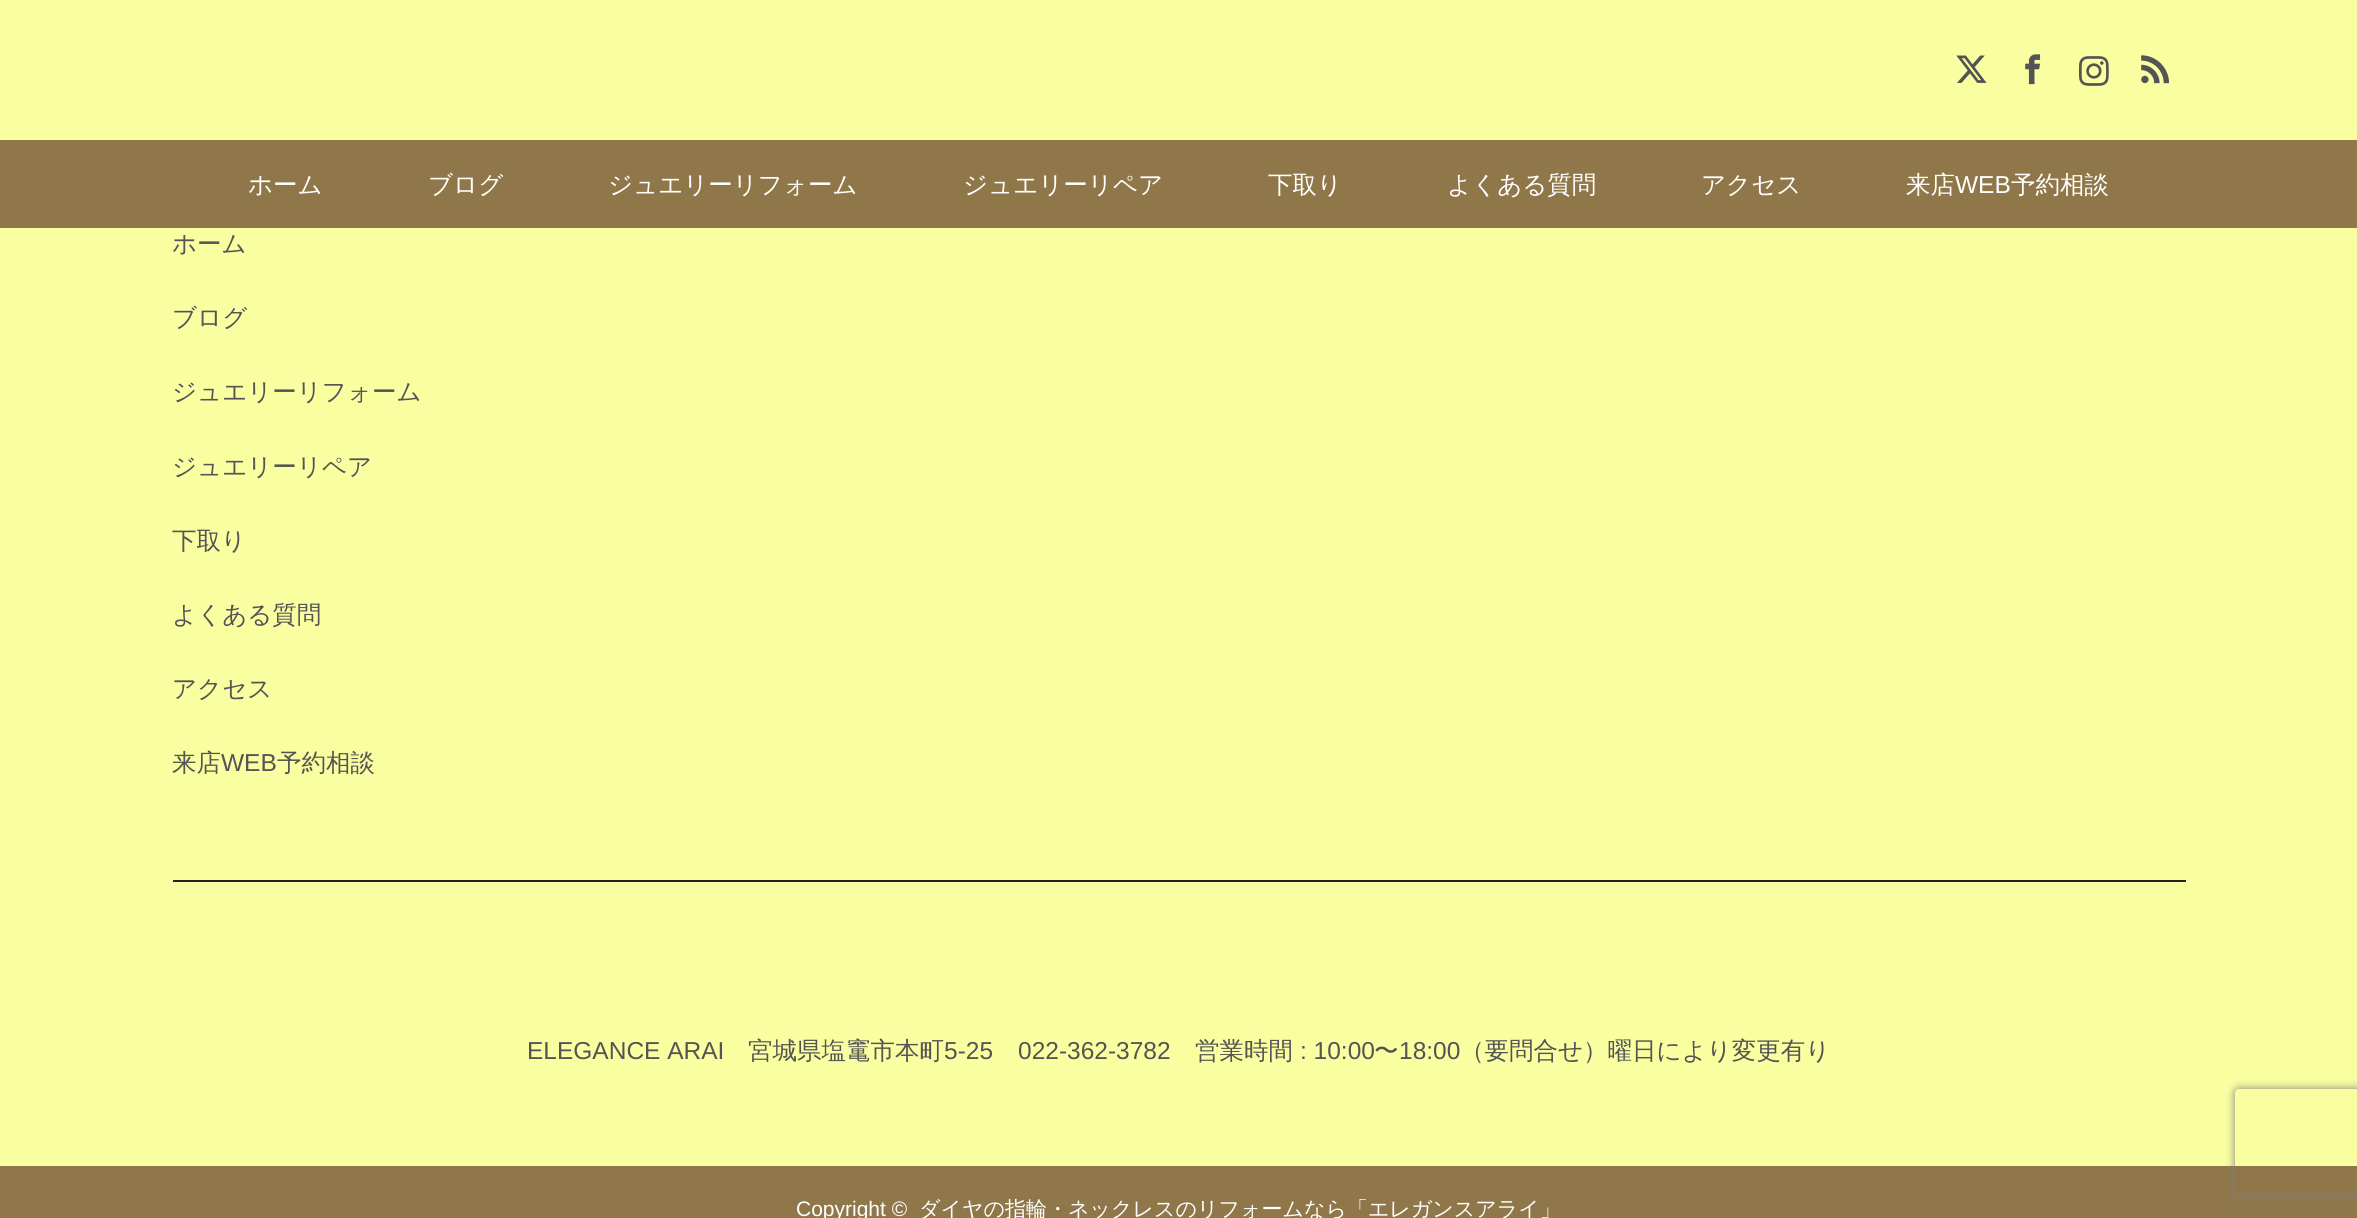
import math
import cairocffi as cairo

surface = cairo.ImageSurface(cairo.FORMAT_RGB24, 2357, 1218)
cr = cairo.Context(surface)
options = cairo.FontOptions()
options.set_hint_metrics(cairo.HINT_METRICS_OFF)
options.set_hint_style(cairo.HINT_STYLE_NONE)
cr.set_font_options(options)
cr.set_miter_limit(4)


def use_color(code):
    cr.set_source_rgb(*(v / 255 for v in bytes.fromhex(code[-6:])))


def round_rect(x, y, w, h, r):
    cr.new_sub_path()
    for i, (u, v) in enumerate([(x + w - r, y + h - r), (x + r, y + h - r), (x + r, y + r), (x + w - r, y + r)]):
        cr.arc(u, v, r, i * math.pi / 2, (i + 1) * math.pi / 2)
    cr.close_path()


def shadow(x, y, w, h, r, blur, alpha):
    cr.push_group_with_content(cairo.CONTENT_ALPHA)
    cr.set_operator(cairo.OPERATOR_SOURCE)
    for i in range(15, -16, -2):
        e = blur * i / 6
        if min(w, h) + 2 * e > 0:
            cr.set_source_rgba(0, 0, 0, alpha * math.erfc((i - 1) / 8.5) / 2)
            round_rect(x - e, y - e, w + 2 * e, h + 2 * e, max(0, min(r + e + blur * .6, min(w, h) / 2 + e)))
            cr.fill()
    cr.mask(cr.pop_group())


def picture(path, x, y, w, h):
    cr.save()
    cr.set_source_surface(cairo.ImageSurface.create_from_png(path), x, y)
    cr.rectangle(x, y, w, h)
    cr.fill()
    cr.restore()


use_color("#f9ffa1")
cr.paint()
picture("img1.png", 1956, 55, 31, 28)
picture("img2.png", 2025, 54, 16, 31)
picture("img3.png", 2079, 56, 30, 30)
picture("img4.png", 2141, 55, 29, 29)
use_color("#8f7749")
cr.rectangle(0, 140, 2357, 88)
cr.fill()
cr.select_font_face("WenQuanYi Zen Hei Medium")
cr.set_font_size(24.5)
use_color("#ffffff")
cr.move_to(248, 193)
cr.show_text("ホーム")
cr.move_to(428, 193)
cr.show_text("ブログ")
cr.move_to(608, 193)
cr.show_text("ジュエリーリフォーム")
cr.move_to(963, 193)
cr.show_text("ジュエリーリペア")
cr.move_to(1268, 193)
cr.show_text("下取り")
cr.move_to(1447, 193)
cr.show_text("よくある質問")
cr.move_to(1701, 193)
cr.show_text("アクセス")
cr.move_to(1906, 193)
cr.show_text("来店")
cr.select_font_face("Liberation Sans")
cr.move_to(1955, 193)
cr.show_text("WEB")
cr.select_font_face("WenQuanYi Zen Hei Medium")
cr.move_to(2011, 193)
cr.show_text("予約相談")
use_color("#222222")
cr.rectangle(173, 880, 2013, 2)
cr.fill()
use_color("#545454")
cr.move_to(172, 252)
cr.show_text("ホーム")
cr.move_to(172, 326)
cr.show_text("ブログ")
cr.move_to(172, 400)
cr.show_text("ジュエリーリフォーム")
cr.move_to(172, 475)
cr.show_text("ジュエリーリペア")
cr.move_to(172, 549)
cr.show_text("下取り")
cr.move_to(172, 623)
cr.show_text("よくある質問")
cr.move_to(172, 697)
cr.show_text("アクセス")
cr.move_to(172, 771)
cr.show_text("来店")
cr.select_font_face("Liberation Sans")
cr.move_to(221, 771)
cr.show_text("WEB")
cr.select_font_face("WenQuanYi Zen Hei Medium")
cr.move_to(277, 771)
cr.show_text("予約相談")
cr.select_font_face("Liberation Sans")
cr.move_to(527, 1059)
cr.show_text("ELEGANCE ARAI")
cr.select_font_face("WenQuanYi Zen Hei Medium")
cr.move_to(748, 1059)
cr.show_text("宮城県塩竃市本町")
cr.select_font_face("Liberation Sans")
cr.move_to(944, 1059)
cr.show_text("5-25")
cr.move_to(1018, 1059)
cr.show_text("022-362-3782")
cr.select_font_face("WenQuanYi Zen Hei Medium")
cr.move_to(1195, 1059)
cr.show_text("営業時間")
cr.select_font_face("Liberation Sans")
cr.move_to(1300, 1059)
cr.show_text(": 10:00")
cr.select_font_face("WenQuanYi Zen Hei Medium")
cr.move_to(1374, 1059)
cr.show_text("〜")
cr.select_font_face("Liberation Sans")
cr.move_to(1399, 1059)
cr.show_text("18:00")
cr.select_font_face("WenQuanYi Zen Hei Medium")
cr.move_to(1460, 1059)
cr.show_text("（要問合せ）曜日により変更有り")
use_color("#8f7749")
cr.rectangle(0, 1166, 2357, 52)
cr.fill()
cr.select_font_face("Liberation Sans")
cr.set_font_size(21)
use_color("#ffffff")
cr.move_to(796, 1216)
cr.show_text("Copyright ©")
cr.select_font_face("WenQuanYi Zen Hei Medium")
cr.move_to(919, 1216)
cr.show_text("ダイヤの指輪・ネックレスのリフォームなら「エレガンスアライ」")
cr.save()
cr.set_fill_rule(cairo.FILL_RULE_EVEN_ODD)
cr.new_path()
cr.move_to(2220, 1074)
cr.line_to(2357, 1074)
cr.line_to(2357, 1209)
cr.line_to(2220, 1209)
cr.close_path()
cr.move_to(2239, 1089)
cr.line_to(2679, 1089)
cr.curve_to(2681, 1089, 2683, 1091, 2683, 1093)
cr.line_to(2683, 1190)
cr.curve_to(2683, 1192, 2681, 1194, 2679, 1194)
cr.line_to(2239, 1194)
cr.curve_to(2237, 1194, 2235, 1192, 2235, 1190)
cr.line_to(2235, 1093)
cr.curve_to(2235, 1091, 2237, 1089, 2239, 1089)
cr.close_path()
cr.clip()
use_color("#808080")
shadow(2235, 1089, 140, 105, 4, 4.5, 1)
cr.restore()
surface.write_to_png("result.png")
